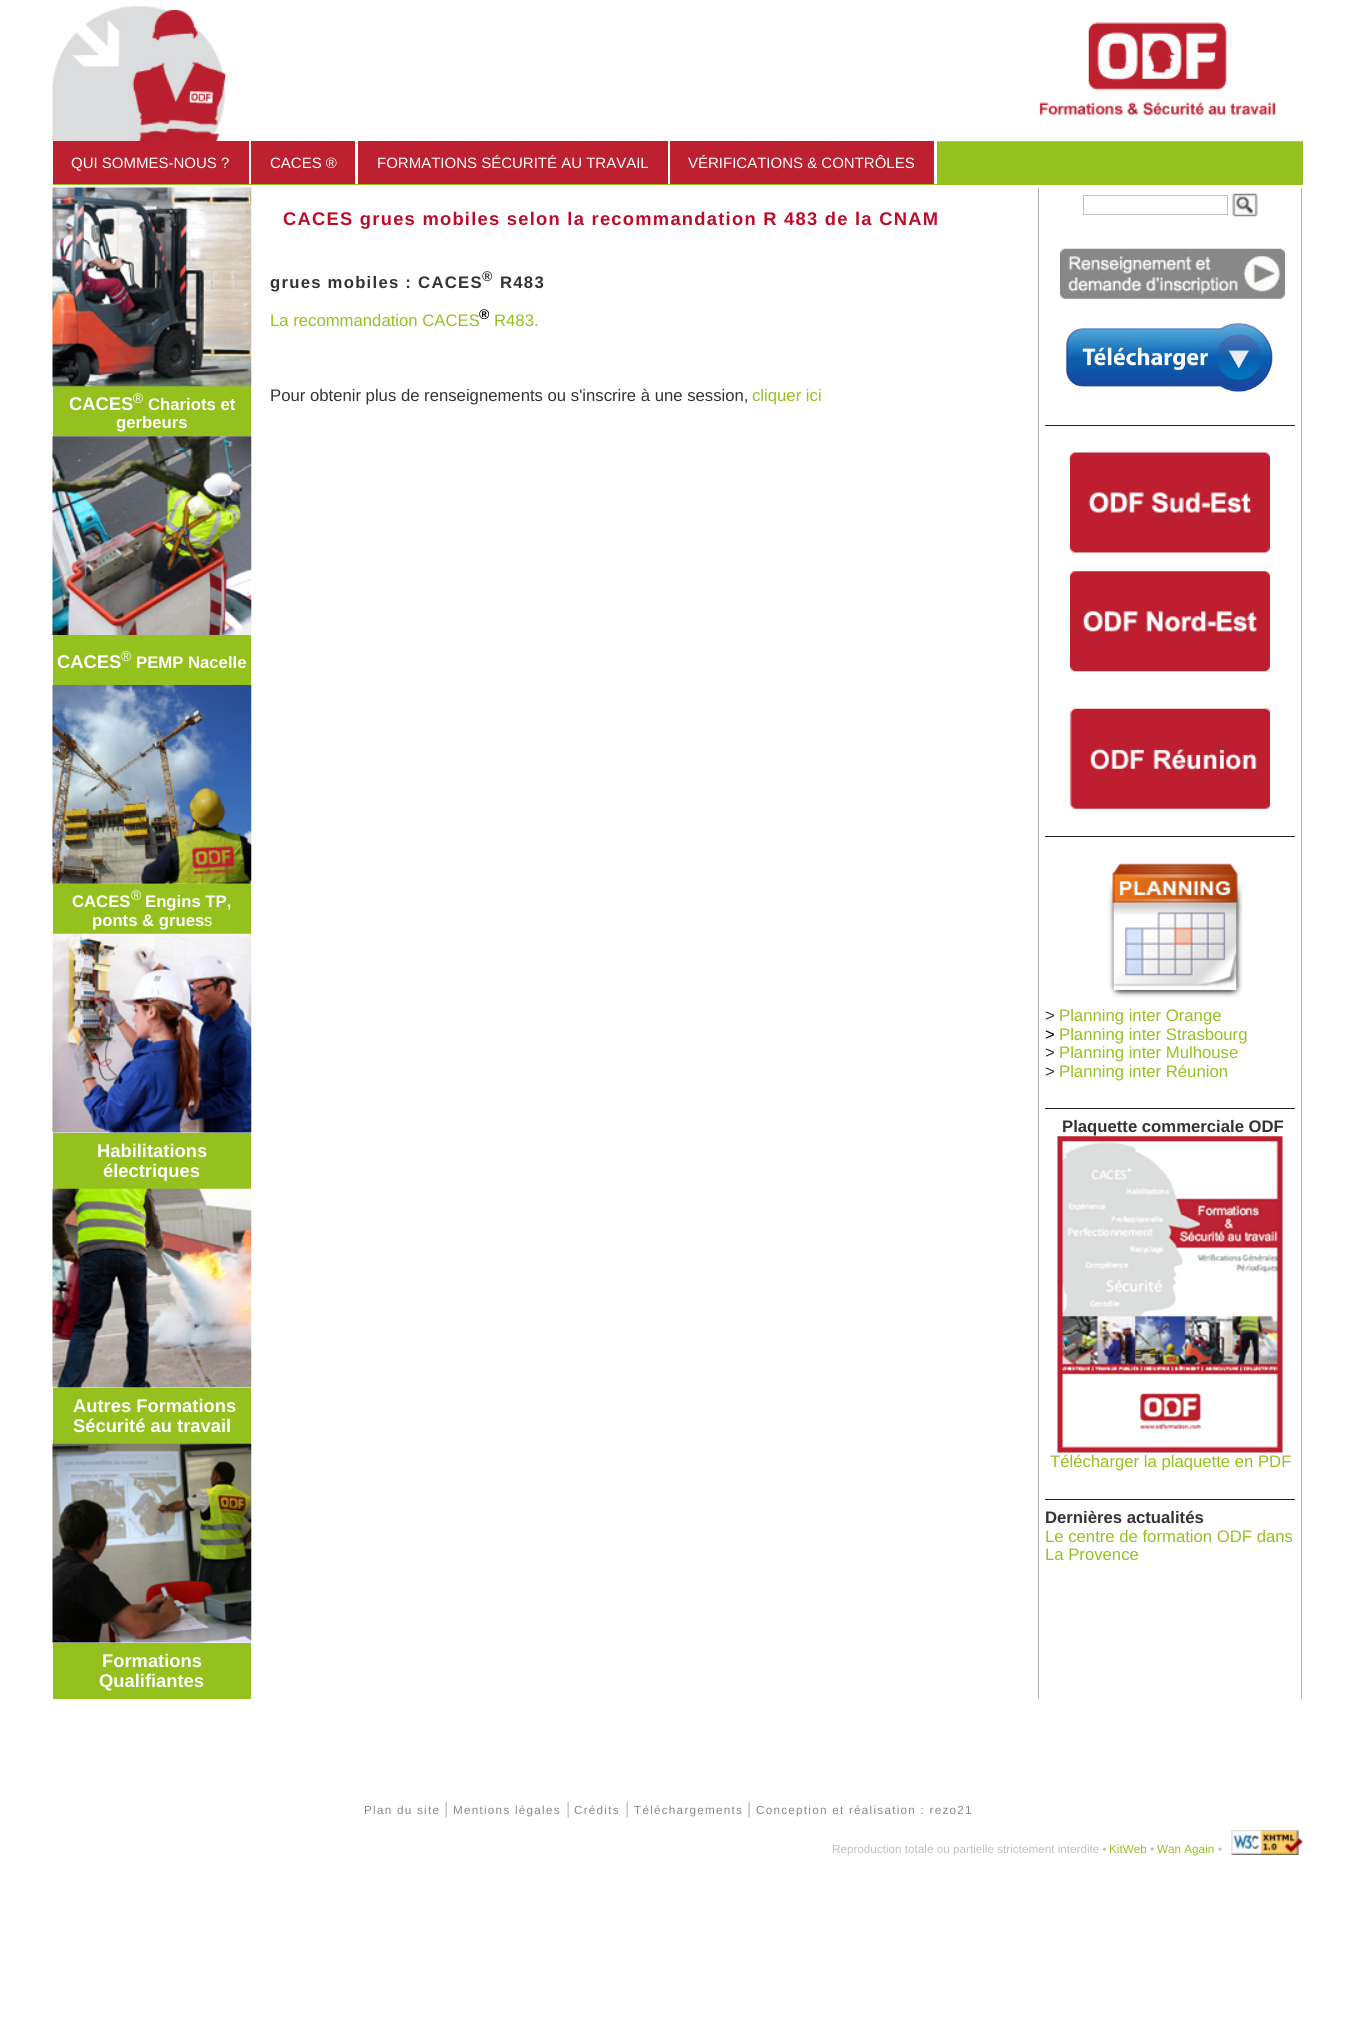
import math
import cairocffi as cairo

surface = cairo.ImageSurface(cairo.FORMAT_RGB24, 1355, 2032)
cr = cairo.Context(surface)
options = cairo.FontOptions()
options.set_hint_metrics(cairo.HINT_METRICS_OFF)
options.set_hint_style(cairo.HINT_STYLE_NONE)
cr.set_font_options(options)
cr.set_miter_limit(4)


def use_color(code):
    cr.set_source_rgb(*(v / 255 for v in bytes.fromhex(code[-6:])))


def spaced_text(x, y, s, letter, word):
    cr.move_to(x, y)
    for ch in s:
        cr.show_text(ch)
        cr.rel_move_to(letter + word * (ch == ' '), 0)


def picture(path, x, y, w, h):
    cr.save()
    cr.set_source_surface(cairo.ImageSurface.create_from_png(path), x, y)
    cr.rectangle(x, y, w, h)
    cr.fill()
    cr.restore()


use_color("#ffffff")
cr.paint()
use_color("#95c11f")
cr.rectangle(53, 141, 1250, 44)
cr.fill()
picture("img1.png", 52, 6, 1251, 136)
use_color("#bd202f")
cr.rectangle(53, 141, 196, 43)
cr.fill()
cr.select_font_face("Liberation Sans")
cr.set_font_size(15)
use_color("#ffffff")
cr.move_to(71, 168)
cr.show_text("QUI SOMMES-NOUS ?")
cr.rectangle(249, 141, 2, 43)
cr.fill()
use_color("#bd202f")
cr.rectangle(251, 141, 104, 43)
cr.fill()
use_color("#ffffff")
cr.move_to(270, 168)
cr.show_text("CACES ®")
cr.rectangle(355, 141, 3, 43)
cr.fill()
use_color("#bd202f")
cr.rectangle(358, 141, 310, 43)
cr.fill()
use_color("#ffffff")
cr.move_to(377, 168)
cr.show_text("FORMATIONS SÉCURITÉ AU TRAVAIL")
cr.rectangle(668, 141, 2, 43)
cr.fill()
use_color("#bd202f")
cr.rectangle(670, 141, 264, 43)
cr.fill()
use_color("#ffffff")
cr.move_to(688, 168)
cr.show_text("VÉRIFICATIONS & CONTRÔLES")
cr.rectangle(934, 141, 3, 43)
cr.fill()
cr.select_font_face("Liberation Sans", cairo.FONT_SLANT_NORMAL, cairo.FONT_WEIGHT_BOLD)
cr.set_font_size(18.35)
use_color("#bd0c27")
spaced_text(283, 225, "CACES grues mobiles selon la recommandation R 483 de la CNAM", 1.25, 0)
cr.set_font_size(16.7)
use_color("#333333")
spaced_text(270, 288, "grues mobiles : CACES", 1.25, 0)
cr.set_font_size(14)
spaced_text(482, 281, "®", 1.25, 0)
cr.set_font_size(16.7)
spaced_text(500, 288, "R483", 1.25, 0)
cr.select_font_face("Liberation Sans")
use_color("#95c11f")
cr.move_to(270, 326)
cr.show_text("La recommandation CACES")
cr.select_font_face("Liberation Sans", cairo.FONT_SLANT_NORMAL, cairo.FONT_WEIGHT_BOLD)
cr.set_font_size(14)
use_color("#000000")
cr.move_to(479, 319)
cr.show_text("®")
cr.select_font_face("Liberation Sans")
cr.set_font_size(16.7)
use_color("#95c11f")
cr.move_to(494, 326)
cr.show_text("R483.")
use_color("#333333")
cr.move_to(270, 401)
cr.show_text("Pour obtenir plus de renseignements ou s'inscrire à une session,")
use_color("#95c11f")
cr.move_to(752, 401)
cr.show_text("cliquer ici")
cr.rectangle(53, 386, 198, 50)
cr.fill()
picture("img2.png", 52, 187, 200, 200)
cr.select_font_face("Liberation Sans", cairo.FONT_SLANT_NORMAL, cairo.FONT_WEIGHT_BOLD)
cr.set_font_size(18.35)
use_color("#ffffff")
cr.move_to(69, 410)
cr.show_text("CACES")
cr.select_font_face("Liberation Sans")
cr.set_font_size(14)
cr.move_to(133, 403)
cr.show_text("®")
cr.select_font_face("Liberation Sans", cairo.FONT_SLANT_NORMAL, cairo.FONT_WEIGHT_BOLD)
cr.set_font_size(16.7)
cr.move_to(148, 410)
cr.show_text("Chariots et")
cr.move_to(116, 428)
cr.show_text("gerbeurs")
picture("img3.png", 52, 436, 200, 199)
use_color("#95c11f")
cr.rectangle(53, 635, 198, 50)
cr.fill()
cr.set_font_size(18.35)
use_color("#ffffff")
cr.move_to(57, 668)
cr.show_text("CACES")
cr.select_font_face("Liberation Sans")
cr.set_font_size(14)
cr.move_to(121, 661)
cr.show_text("®")
cr.select_font_face("Liberation Sans", cairo.FONT_SLANT_NORMAL, cairo.FONT_WEIGHT_BOLD)
cr.set_font_size(16.7)
cr.move_to(136, 668)
cr.show_text("PEMP Nacelle")
picture("img4.png", 52, 685, 200, 199)
use_color("#95c11f")
cr.rectangle(53, 884, 198, 50)
cr.fill()
use_color("#ffffff")
cr.move_to(72, 907)
cr.show_text("CACES")
cr.select_font_face("Liberation Sans")
cr.set_font_size(14)
cr.move_to(131, 900)
cr.show_text("®")
cr.select_font_face("Liberation Sans", cairo.FONT_SLANT_NORMAL, cairo.FONT_WEIGHT_BOLD)
cr.set_font_size(16.7)
cr.move_to(145, 907)
cr.show_text("Engins TP,")
cr.move_to(92, 926)
cr.show_text("ponts & grues")
cr.select_font_face("Liberation Sans")
cr.move_to(204, 926)
cr.show_text("s")
picture("img5.png", 52, 933, 200, 200)
use_color("#95c11f")
cr.rectangle(53, 1133, 198, 56)
cr.fill()
cr.select_font_face("Liberation Sans", cairo.FONT_SLANT_NORMAL, cairo.FONT_WEIGHT_BOLD)
cr.set_font_size(18.35)
use_color("#ffffff")
cr.move_to(97, 1157)
cr.show_text("Habilitations")
cr.move_to(103, 1177)
cr.show_text("électriques")
picture("img6.png", 52, 1188, 200, 200)
use_color("#95c11f")
cr.rectangle(53, 1388, 198, 56)
cr.fill()
use_color("#ffffff")
cr.move_to(73, 1412)
cr.show_text("Autres Formations")
cr.move_to(73, 1432)
cr.show_text("Sécurité au travail")
picture("img7.png", 52, 1443, 200, 200)
use_color("#95c11f")
cr.rectangle(53, 1643, 198, 56)
cr.fill()
use_color("#ffffff")
cr.move_to(102, 1667)
cr.show_text("Formations")
cr.move_to(99, 1687)
cr.show_text("Qualifiantes")
use_color("#b3b3b3")
cr.rectangle(1301, 188, 1, 1511)
cr.fill()
cr.rectangle(1038, 188, 1, 1511)
cr.fill()
cr.rectangle(1083.5, 195.5, 144, 19)
use_color("#c0c0c0")
cr.set_line_width(1)
cr.stroke()
picture("img8.png", 1232, 193, 26, 24)
picture("img9.png", 1060, 248, 225, 51)
picture("img10.png", 1065, 323, 208, 69)
use_color("#222222")
cr.rectangle(1045, 425, 250, 1)
cr.fill()
picture("img11.png", 1070, 452, 200, 101)
picture("img12.png", 1070, 571, 200, 101)
picture("img13.png", 1070, 708, 200, 101)
cr.rectangle(1045, 836, 250, 1)
cr.fill()
picture("img14.png", 1108, 863, 135, 135)
cr.select_font_face("Liberation Sans")
cr.set_font_size(16.7)
use_color("#333333")
cr.move_to(1045, 1021)
cr.show_text(">")
use_color("#95c11f")
cr.move_to(1059, 1021)
cr.show_text("Planning inter Orange")
use_color("#000000")
cr.move_to(1045, 1040)
cr.show_text(">")
use_color("#95c11f")
cr.move_to(1059, 1040)
cr.show_text("Planning inter Strasbourg")
use_color("#333333")
cr.move_to(1045, 1058)
cr.show_text(">")
use_color("#95c11f")
cr.move_to(1059, 1058)
cr.show_text("Planning inter Mulhouse")
use_color("#333333")
cr.move_to(1045, 1077)
cr.show_text(">")
use_color("#95c11f")
cr.move_to(1059, 1077)
cr.show_text("Planning inter Réunion")
use_color("#222222")
cr.rectangle(1045, 1108, 250, 1)
cr.fill()
cr.select_font_face("Liberation Sans", cairo.FONT_SLANT_NORMAL, cairo.FONT_WEIGHT_BOLD)
use_color("#333333")
cr.move_to(1062, 1132)
cr.show_text("Plaquette commerciale ODF")
picture("img15.png", 1057, 1136, 226, 317)
cr.select_font_face("Liberation Sans")
use_color("#95c11f")
cr.move_to(1050, 1467)
cr.show_text("Télécharger la plaquette en PDF")
use_color("#222222")
cr.rectangle(1045, 1499, 250, 1)
cr.fill()
cr.select_font_face("Liberation Sans", cairo.FONT_SLANT_NORMAL, cairo.FONT_WEIGHT_BOLD)
use_color("#333333")
cr.move_to(1045, 1523)
cr.show_text("Dernières actualités")
cr.select_font_face("Liberation Sans")
use_color("#95c11f")
cr.move_to(1045, 1542)
cr.show_text("Le centre de formation ODF dans")
cr.move_to(1045, 1560)
cr.show_text("La Provence")
cr.set_font_size(11.7)
use_color("#888888")
spaced_text(364, 1814, "Plan du site", 1.25, 0)
cr.set_font_size(16.7)
use_color("#c0c0c0")
cr.move_to(444, 1814)
cr.show_text("|")
cr.set_font_size(11.7)
use_color("#888888")
spaced_text(453, 1814, "Mentions légales", 1.25, 0)
cr.set_font_size(16.7)
use_color("#c0c0c0")
cr.move_to(566, 1814)
cr.show_text("|")
cr.set_font_size(11.7)
use_color("#888888")
spaced_text(574, 1814, "Crédits", 1.25, 0)
cr.set_font_size(16.7)
use_color("#c0c0c0")
cr.move_to(625, 1814)
cr.show_text("|")
cr.set_font_size(11.7)
use_color("#888888")
spaced_text(634, 1814, "Téléchargements", 1.25, 0)
cr.set_font_size(16.7)
use_color("#c0c0c0")
cr.move_to(747, 1814)
cr.show_text("|")
cr.set_font_size(11.7)
use_color("#888888")
spaced_text(756, 1814, "Conception et réalisation : rezo21", 1.25, 0)
use_color("#c0c0c0")
cr.move_to(832, 1853)
cr.show_text("Reproduction totale ou partielle strictement interdite •")
use_color("#95c11f")
cr.move_to(1109, 1853)
cr.show_text("KitWeb")
use_color("#c0c0c0")
cr.move_to(1150, 1853)
cr.show_text("•")
use_color("#95c11f")
cr.move_to(1157, 1853)
cr.show_text("Wan Again")
use_color("#c0c0c0")
cr.move_to(1218, 1853)
cr.show_text("•")
picture("img16.png", 1231, 1830, 72, 25)
surface.write_to_png("result.png")
